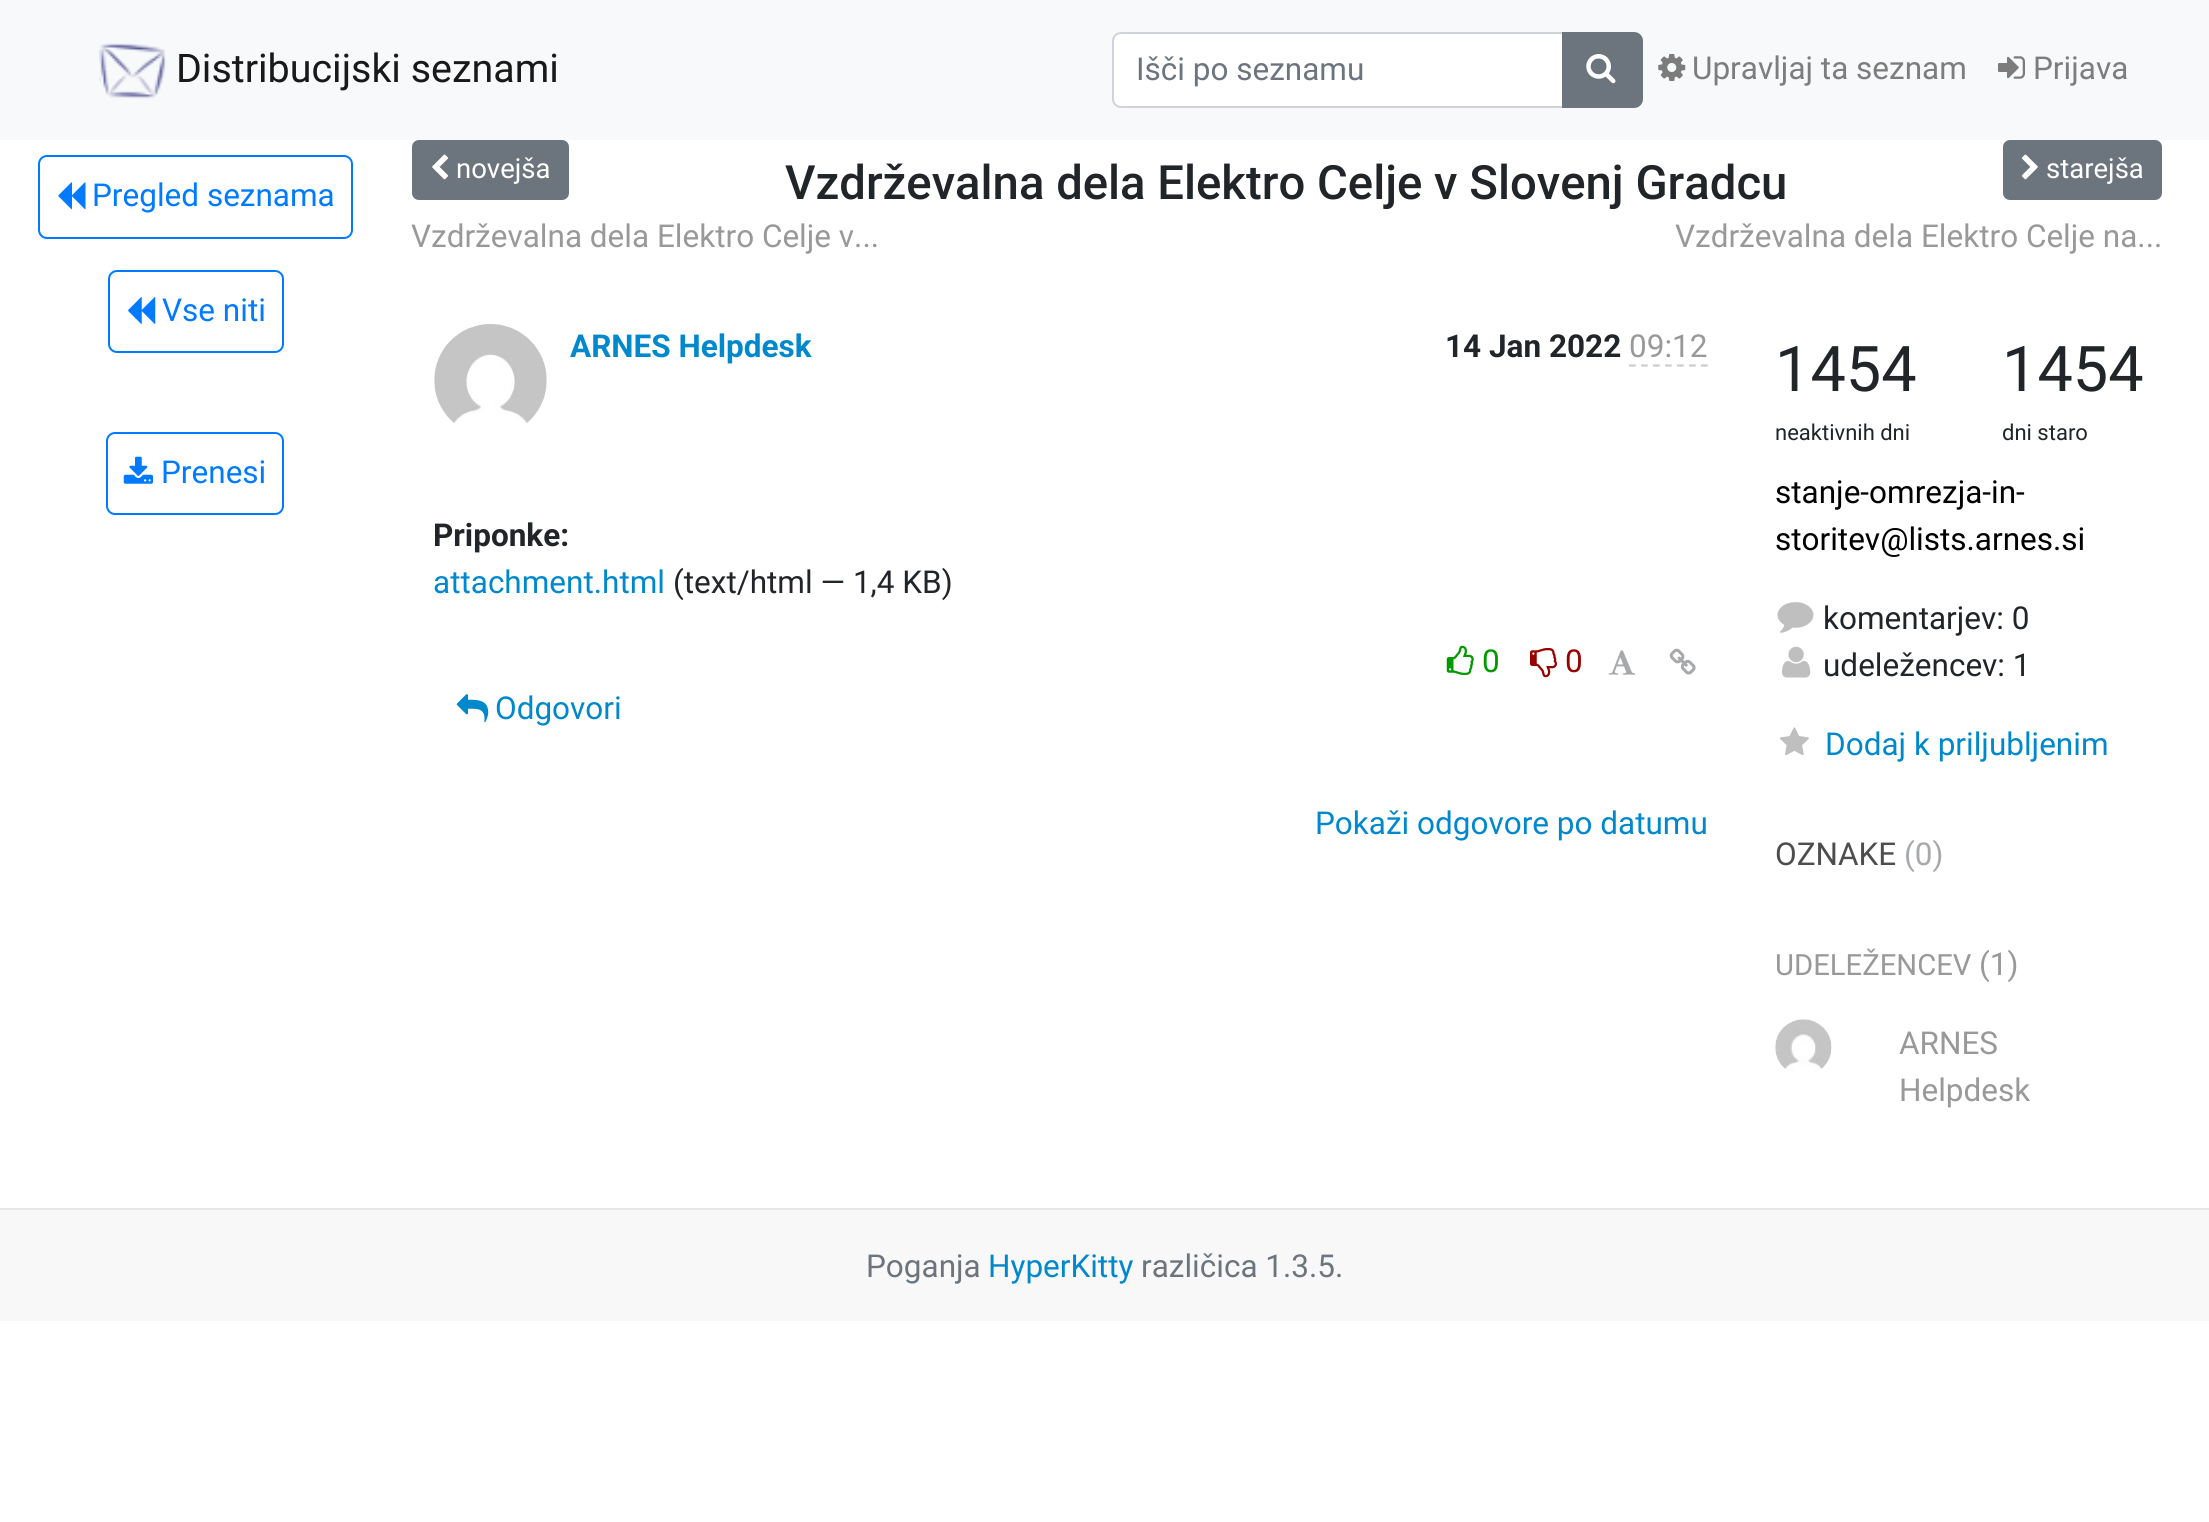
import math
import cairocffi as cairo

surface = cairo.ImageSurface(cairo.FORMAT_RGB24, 2209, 1522)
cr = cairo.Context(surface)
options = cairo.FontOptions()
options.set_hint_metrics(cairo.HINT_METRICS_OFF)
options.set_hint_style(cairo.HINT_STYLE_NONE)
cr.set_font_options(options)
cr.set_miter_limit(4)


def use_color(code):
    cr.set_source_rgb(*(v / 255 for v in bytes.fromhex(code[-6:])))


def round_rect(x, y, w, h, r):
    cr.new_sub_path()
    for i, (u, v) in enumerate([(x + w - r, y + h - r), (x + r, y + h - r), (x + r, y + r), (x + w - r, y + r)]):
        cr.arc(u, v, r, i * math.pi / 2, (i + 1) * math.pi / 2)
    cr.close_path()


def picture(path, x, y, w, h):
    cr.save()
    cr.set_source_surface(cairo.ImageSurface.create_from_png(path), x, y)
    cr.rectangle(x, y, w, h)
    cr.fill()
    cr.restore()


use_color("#ffffff")
cr.paint()
use_color("#f8f9fa")
cr.rectangle(0, 0, 2209, 140)
cr.fill()
picture("img1.png", 99, 43, 67, 56)
cr.select_font_face("Roboto")
cr.set_font_size(39.4)
use_color("#191919")
cr.move_to(176, 82)
cr.show_text("Distribucijski seznami")
use_color("#ffffff")
cr.new_path()
cr.move_to(1120, 34)
cr.line_to(1562, 34)
cr.line_to(1562, 106)
cr.line_to(1120, 106)
cr.curve_to(1116.5, 106, 1114, 103.5, 1114, 100)
cr.line_to(1114, 40)
cr.curve_to(1114, 36.5, 1116.5, 34, 1120, 34)
cr.close_path()
cr.fill()
cr.new_path()
cr.move_to(1121, 33)
cr.line_to(1563, 33)
cr.line_to(1563, 107)
cr.line_to(1121, 107)
cr.curve_to(1116.5, 107, 1113, 103.5, 1113, 99)
cr.line_to(1113, 41)
cr.curve_to(1113, 36.5, 1116.5, 33, 1121, 33)
cr.close_path()
use_color("#ced4da")
cr.stroke()
cr.set_font_size(31.5)
use_color("#6c757d")
cr.move_to(1136, 80)
cr.show_text("Išči po seznamu")
cr.new_path()
cr.move_to(1563, 33)
cr.line_to(1634, 33)
cr.curve_to(1638.5, 33, 1642, 36.5, 1642, 41)
cr.line_to(1642, 99)
cr.curve_to(1642, 103.5, 1638.5, 107, 1634, 107)
cr.line_to(1563, 107)
cr.close_path()
cr.fill_preserve()
cr.stroke()
picture("img2.png", 1586, 54, 30, 30)
picture("img3.png", 1658, 54, 28, 27)
use_color("#7c7d7d")
cr.move_to(1692, 79)
cr.show_text("Upravljaj ta seznam")
picture("img4.png", 1998, 56, 27, 23)
cr.move_to(2033, 79)
cr.show_text("Prijava")
round_rect(39, 156, 313, 82, 8)
use_color("#007bff")
cr.stroke()
picture("img5.png", 58, 182, 28, 28)
cr.move_to(92, 206)
cr.show_text("Pregled seznama")
round_rect(109, 271, 174, 81, 8)
cr.stroke()
picture("img6.png", 128, 297, 28, 27)
cr.move_to(162, 321)
cr.show_text("Vse niti")
round_rect(107, 433, 176, 81, 8)
cr.stroke()
picture("img7.png", 123, 456, 30, 28)
cr.move_to(161, 483)
cr.show_text("Prenesi")
use_color("#6c757d")
round_rect(413, 141, 155, 58, 6)
cr.fill_preserve()
cr.stroke()
picture("img8.png", 432, 154, 16, 26)
cr.set_font_size(27.5)
use_color("#ffffff")
cr.move_to(456, 178)
cr.show_text("novejša")
cr.select_font_face("Roboto Medium")
cr.set_font_size(47.25)
use_color("#212529")
cr.move_to(785, 199)
cr.show_text("Vzdrževalna dela Elektro Celje v Slovenj Gradcu")
use_color("#6c757d")
round_rect(2004, 141, 157, 58, 6)
cr.fill_preserve()
cr.stroke()
picture("img9.png", 2021, 154, 17, 26)
cr.select_font_face("Roboto")
cr.set_font_size(27.5)
use_color("#ffffff")
cr.move_to(2046, 178)
cr.show_text("starejša")
cr.set_font_size(31.5)
use_color("#999999")
cr.move_to(411, 247)
cr.show_text("Vzdrževalna dela Elektro Celje v...")
cr.move_to(1675, 247)
cr.show_text("Vzdrževalna dela Elektro Celje na...")
picture("img10.png", 434, 324, 113, 100)
cr.select_font_face("Roboto", cairo.FONT_SLANT_NORMAL, cairo.FONT_WEIGHT_BOLD)
use_color("#0088cc")
cr.move_to(570, 357)
cr.show_text("ARNES Helpdesk")
use_color("#212529")
cr.move_to(1445, 357)
cr.show_text("14 Jan 2022")
cr.select_font_face("Roboto")
use_color("#999999")
cr.move_to(1629, 357)
cr.show_text("09:12")
cr.new_path()
cr.move_to(1629, 365.5)
cr.line_to(1708, 365.5)
use_color("#cccccc")
cr.set_line_width(2.2)
cr.set_dash([6.75, 5.24])
cr.stroke()
cr.select_font_face("Roboto", cairo.FONT_SLANT_NORMAL, cairo.FONT_WEIGHT_BOLD)
use_color("#212529")
cr.move_to(433, 546)
cr.show_text("Priponke:")
cr.select_font_face("Roboto")
use_color("#0088cc")
cr.move_to(433, 593)
cr.show_text("attachment.html")
use_color("#212529")
cr.move_to(673, 593)
cr.show_text("(text/html — 1,4 KB)")
picture("img11.png", 1446, 645, 28, 30)
use_color("#009900")
cr.move_to(1482, 672)
cr.show_text("0")
picture("img12.png", 1530, 648, 27, 30)
use_color("#990000")
cr.move_to(1565, 672)
cr.show_text("0")
picture("img13.png", 1608, 650, 28, 25)
picture("img14.png", 1669, 648, 27, 27)
picture("img15.png", 456, 694, 33, 29)
use_color("#0088cc")
cr.move_to(495, 719)
cr.show_text("Odgovori")
cr.move_to(1315, 834)
cr.show_text("Pokaži odgovore po datumu")
cr.set_font_size(63)
use_color("#212529")
cr.move_to(1775, 391)
cr.show_text("1454")
cr.set_font_size(22)
cr.move_to(1775, 440)
cr.show_text("neaktivnih dni")
cr.set_font_size(63)
cr.move_to(2002, 391)
cr.show_text("1454")
cr.set_font_size(22)
cr.move_to(2002, 440)
cr.show_text("dni staro")
cr.set_font_size(31.5)
use_color("#000000")
cr.move_to(1775, 503)
cr.show_text("stanje-omrezja-in-")
cr.move_to(1775, 550)
cr.show_text("storitev@lists.arnes.si")
picture("img16.png", 1777, 602, 37, 31)
use_color("#212529")
cr.move_to(1823, 629)
cr.show_text("komentarjev: 0")
picture("img17.png", 1782, 646, 29, 32)
cr.move_to(1823, 676)
cr.show_text("udeležencev: 1")
picture("img18.png", 1779, 727, 30, 29)
use_color("#0088cc")
cr.move_to(1825, 755)
cr.show_text("Dodaj k priljubljenim")
use_color("#4d4d4d")
cr.move_to(1775, 865)
cr.show_text("OZNAKE")
use_color("#a7a9ac")
cr.move_to(1904, 865)
cr.show_text("(0)")
cr.set_font_size(29.25)
use_color("#999999")
cr.move_to(1775, 975)
cr.show_text("UDELEŽENCEV")
cr.set_font_size(31.5)
cr.move_to(1979, 975)
cr.show_text("(1)")
picture("img19.png", 1775, 1019, 57, 53)
cr.move_to(1899, 1054)
cr.show_text("ARNES")
cr.move_to(1899, 1101)
cr.show_text("Helpdesk")
use_color("#f8f8f8")
cr.rectangle(0, 1210, 2209, 111)
cr.fill()
use_color("#e7e7e7")
cr.rectangle(0, 1208, 2209, 2)
cr.fill()
use_color("#6c757d")
cr.move_to(866, 1277)
cr.show_text("Poganja")
use_color("#0088cc")
cr.move_to(988, 1277)
cr.show_text("HyperKitty")
use_color("#6c757d")
cr.move_to(1141, 1277)
cr.show_text("različica 1.3.5.")
surface.write_to_png("result.png")
